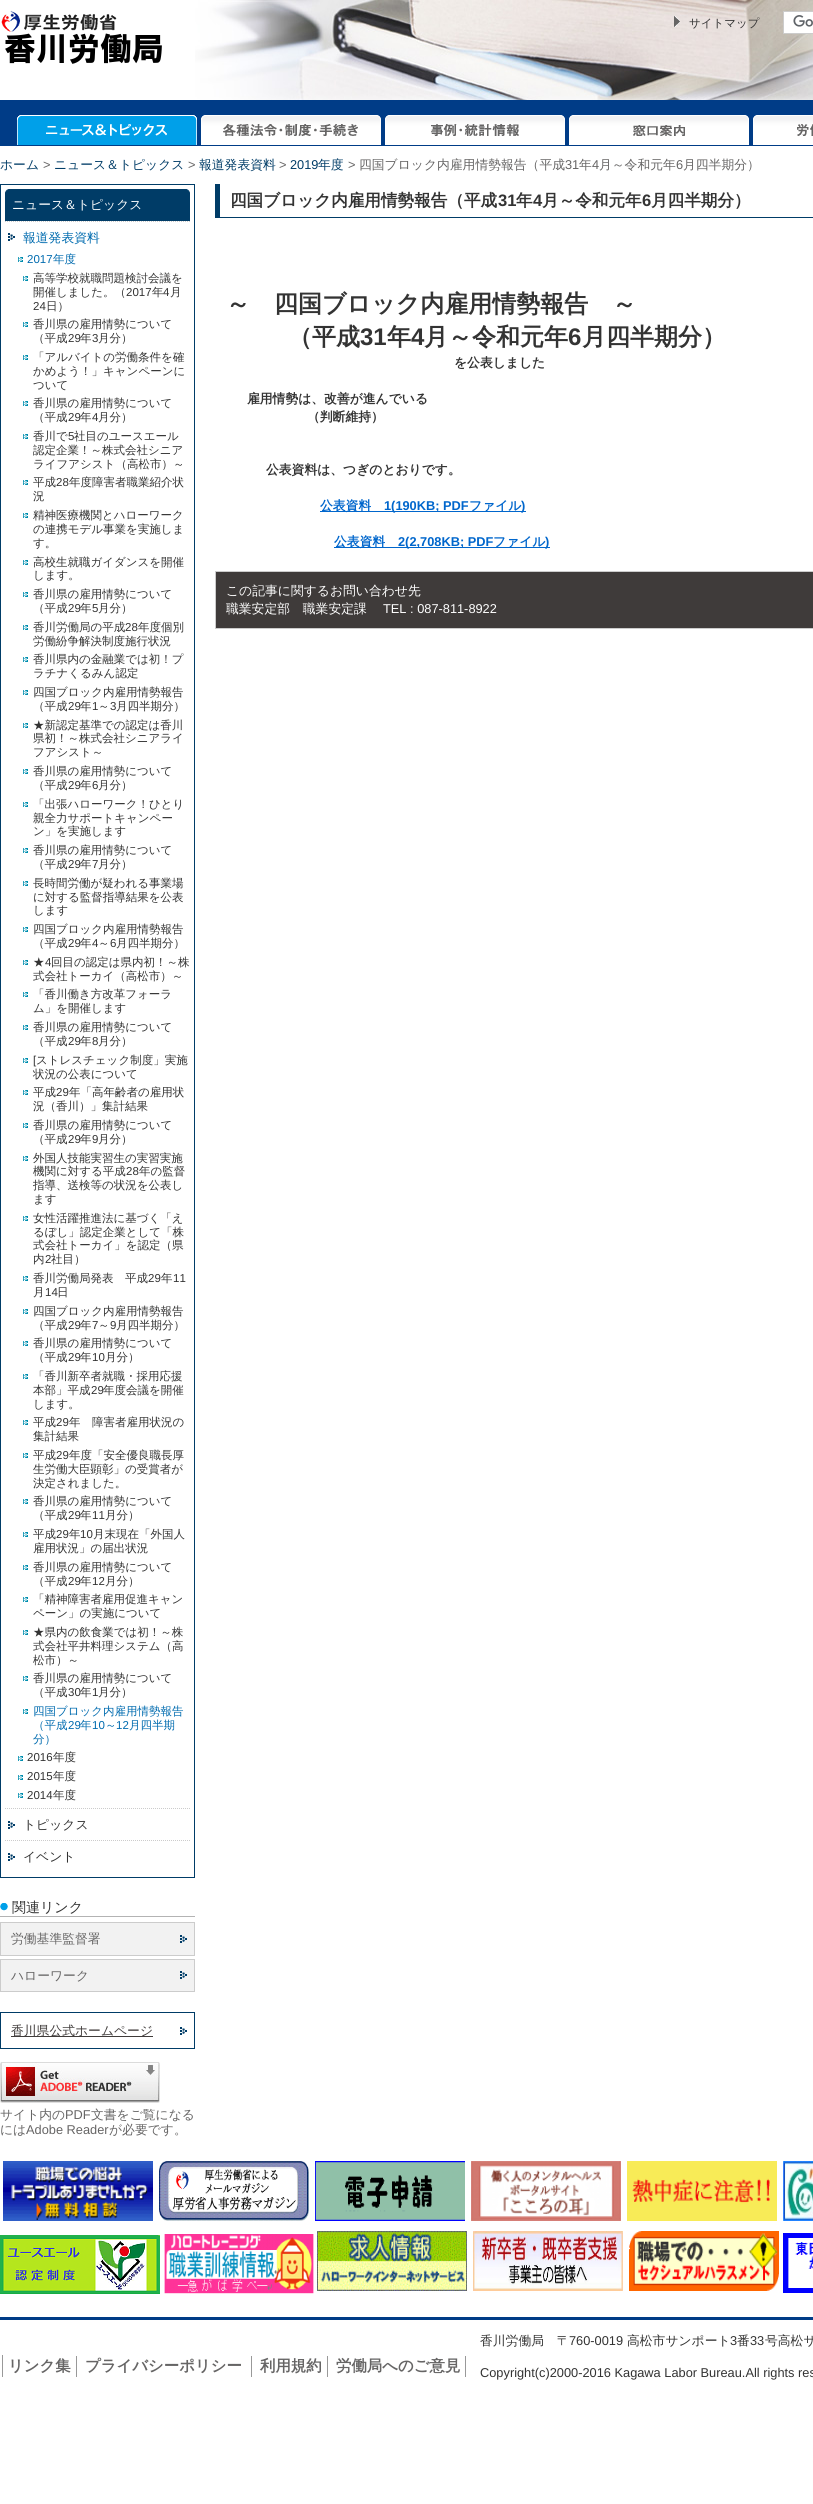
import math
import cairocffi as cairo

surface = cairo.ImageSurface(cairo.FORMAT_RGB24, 813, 2504)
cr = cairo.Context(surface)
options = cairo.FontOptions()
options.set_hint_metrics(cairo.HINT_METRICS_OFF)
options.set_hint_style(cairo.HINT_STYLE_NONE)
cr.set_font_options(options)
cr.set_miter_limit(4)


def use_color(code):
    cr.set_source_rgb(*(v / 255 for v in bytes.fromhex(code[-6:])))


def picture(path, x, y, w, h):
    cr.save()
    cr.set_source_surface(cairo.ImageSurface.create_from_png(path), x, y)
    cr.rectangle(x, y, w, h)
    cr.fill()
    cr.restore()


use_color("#ffffff")
cr.paint()
picture("img1.png", 195, 0, 618, 100)
picture("img2.png", 1, 10, 161, 54)
picture("img3.png", 674, 16, 6, 11)
cr.select_font_face("WenQuanYi Zen Hei Medium")
cr.set_font_size(11.5)
use_color("#333333")
cr.move_to(689, 27)
cr.show_text("サイトマップ")
use_color("#ffffff")
cr.rectangle(784, 12, 29, 21)
cr.fill()
picture("img4.png", 793, 15, 20, 12)
cr.rectangle(783.5, 11.5, 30, 22)
use_color("#cccccc")
cr.set_line_width(1)
cr.stroke()
use_color("#003c87")
cr.rectangle(0, 100, 813, 46)
cr.fill()
picture("img5.png", 17, 115, 180, 30)
picture("img6.png", 201, 115, 180, 30)
picture("img7.png", 385, 115, 180, 30)
picture("img8.png", 569, 115, 180, 30)
picture("img9.png", 753, 115, 60, 30)
cr.set_font_size(12.8)
use_color("#003c67")
cr.move_to(0, 169)
cr.show_text("ホーム")
cr.select_font_face("Liberation Sans")
use_color("#666565")
cr.move_to(43, 169)
cr.show_text(">")
cr.select_font_face("WenQuanYi Zen Hei Medium")
use_color("#003c67")
cr.move_to(54, 169)
cr.show_text("ニュース＆トピックス")
cr.select_font_face("Liberation Sans")
use_color("#666565")
cr.move_to(188, 169)
cr.show_text(">")
cr.select_font_face("WenQuanYi Zen Hei Medium")
use_color("#003c67")
cr.move_to(199, 169)
cr.show_text("報道発表資料")
cr.select_font_face("Liberation Sans")
use_color("#666565")
cr.move_to(279, 169)
cr.show_text(">")
use_color("#003c67")
cr.move_to(290, 169)
cr.show_text("2019")
cr.select_font_face("WenQuanYi Zen Hei Medium")
cr.move_to(318, 169)
cr.show_text("年度")
cr.select_font_face("Liberation Sans")
use_color("#666565")
cr.move_to(348, 169)
cr.show_text(">")
cr.select_font_face("WenQuanYi Zen Hei Medium")
cr.move_to(359, 169)
cr.show_text("四国ブロック内雇用情勢報告（平成")
cr.select_font_face("Liberation Sans")
cr.move_to(565, 169)
cr.show_text("31")
cr.select_font_face("WenQuanYi Zen Hei Medium")
cr.move_to(579, 169)
cr.show_text("年")
cr.select_font_face("Liberation Sans")
cr.move_to(592, 169)
cr.show_text("4")
cr.select_font_face("WenQuanYi Zen Hei Medium")
cr.move_to(599, 169)
cr.show_text("月～令和元年")
cr.select_font_face("Liberation Sans")
cr.move_to(676, 169)
cr.show_text("6")
cr.select_font_face("WenQuanYi Zen Hei Medium")
cr.move_to(683, 169)
cr.show_text("月四半期分）")
cr.rectangle(0.5, 184.5, 194, 1693)
use_color("#003c67")
cr.stroke()
cr.rectangle(5, 193, 185, 28)
cr.fill()
picture("img10.png", 5, 189, 185, 4)
use_color("#ffffff")
cr.move_to(12, 209)
cr.show_text("ニュース＆トピックス")
picture("img11.png", 8, 233, 7, 8)
cr.new_path()
cr.move_to(5, 221.5)
cr.line_to(190, 221.5)
use_color("#cccccc")
cr.set_dash([1, 1])
cr.stroke()
use_color("#006baf")
cr.move_to(23, 242)
cr.show_text("報道発表資料")
picture("img12.png", 18, 257, 5, 5)
cr.select_font_face("Liberation Sans")
cr.set_font_size(11.5)
cr.move_to(27, 263)
cr.show_text("2017")
cr.select_font_face("WenQuanYi Zen Hei Medium")
cr.move_to(53, 263)
cr.show_text("年度")
picture("img12.png", 23, 276, 5, 5)
use_color("#333333")
cr.move_to(33, 282)
cr.show_text("高等学校就職問題検討会議を")
cr.move_to(33, 296)
cr.show_text("開催しました。（")
cr.select_font_face("Liberation Sans")
cr.move_to(126, 296)
cr.show_text("2017")
cr.select_font_face("WenQuanYi Zen Hei Medium")
cr.move_to(152, 296)
cr.show_text("年")
cr.select_font_face("Liberation Sans")
cr.move_to(163, 296)
cr.show_text("4")
cr.select_font_face("WenQuanYi Zen Hei Medium")
cr.move_to(170, 296)
cr.show_text("月")
cr.select_font_face("Liberation Sans")
cr.move_to(33, 310)
cr.show_text("24")
cr.select_font_face("WenQuanYi Zen Hei Medium")
cr.move_to(46, 310)
cr.show_text("日）")
picture("img12.png", 23, 322, 5, 5)
cr.move_to(33, 328)
cr.show_text("香川県の雇用情勢について")
cr.move_to(33, 342)
cr.show_text("（平成")
cr.select_font_face("Liberation Sans")
cr.move_to(68, 342)
cr.show_text("29")
cr.select_font_face("WenQuanYi Zen Hei Medium")
cr.move_to(80, 342)
cr.show_text("年")
cr.select_font_face("Liberation Sans")
cr.move_to(92, 342)
cr.show_text("3")
cr.select_font_face("WenQuanYi Zen Hei Medium")
cr.move_to(98, 342)
cr.show_text("月分）")
picture("img12.png", 23, 355, 5, 5)
cr.move_to(33, 361)
cr.show_text("「アルバイトの労働条件を確")
cr.move_to(33, 375)
cr.show_text("かめよう！」キャンペーンに")
cr.move_to(33, 389)
cr.show_text("ついて")
picture("img12.png", 23, 401, 5, 5)
cr.move_to(33, 407)
cr.show_text("香川県の雇用情勢について")
cr.move_to(33, 421)
cr.show_text("（平成")
cr.select_font_face("Liberation Sans")
cr.move_to(68, 421)
cr.show_text("29")
cr.select_font_face("WenQuanYi Zen Hei Medium")
cr.move_to(80, 421)
cr.show_text("年")
cr.select_font_face("Liberation Sans")
cr.move_to(92, 421)
cr.show_text("4")
cr.select_font_face("WenQuanYi Zen Hei Medium")
cr.move_to(98, 421)
cr.show_text("月分）")
picture("img12.png", 23, 434, 5, 5)
cr.move_to(33, 440)
cr.show_text("香川で")
cr.select_font_face("Liberation Sans")
cr.move_to(68, 440)
cr.show_text("5")
cr.select_font_face("WenQuanYi Zen Hei Medium")
cr.move_to(74, 440)
cr.show_text("社目のユースエール")
cr.move_to(33, 454)
cr.show_text("認定企業！～株式会社シニア")
cr.move_to(33, 468)
cr.show_text("ライフアシスト（高松市）～")
picture("img12.png", 23, 480, 5, 5)
cr.move_to(33, 486)
cr.show_text("平成")
cr.select_font_face("Liberation Sans")
cr.move_to(56, 486)
cr.show_text("28")
cr.select_font_face("WenQuanYi Zen Hei Medium")
cr.move_to(69, 486)
cr.show_text("年度障害者職業紹介状")
cr.move_to(33, 500)
cr.show_text("況")
picture("img12.png", 23, 513, 5, 5)
cr.move_to(33, 519)
cr.show_text("精神医療機関とハローワーク")
cr.move_to(33, 533)
cr.show_text("の連携モデル事業を実施しま")
cr.move_to(33, 547)
cr.show_text("す。")
picture("img12.png", 23, 560, 5, 5)
cr.move_to(33, 566)
cr.show_text("高校生就職ガイダンスを開催")
cr.move_to(33, 579)
cr.show_text("します。")
picture("img12.png", 23, 592, 5, 5)
cr.move_to(33, 598)
cr.show_text("香川県の雇用情勢について")
cr.move_to(33, 612)
cr.show_text("（平成")
cr.select_font_face("Liberation Sans")
cr.move_to(68, 612)
cr.show_text("29")
cr.select_font_face("WenQuanYi Zen Hei Medium")
cr.move_to(80, 612)
cr.show_text("年")
cr.select_font_face("Liberation Sans")
cr.move_to(92, 612)
cr.show_text("5")
cr.select_font_face("WenQuanYi Zen Hei Medium")
cr.move_to(98, 612)
cr.show_text("月分）")
picture("img12.png", 23, 625, 5, 5)
cr.move_to(33, 631)
cr.show_text("香川労働局の平成")
cr.select_font_face("Liberation Sans")
cr.move_to(125, 631)
cr.show_text("28")
cr.select_font_face("WenQuanYi Zen Hei Medium")
cr.move_to(138, 631)
cr.show_text("年度個別")
cr.move_to(33, 645)
cr.show_text("労働紛争解決制度施行状況")
picture("img12.png", 23, 657, 5, 5)
cr.move_to(33, 663)
cr.show_text("香川県内の金融業では初！プ")
cr.move_to(33, 677)
cr.show_text("ラチナくるみん認定")
picture("img12.png", 23, 690, 5, 5)
cr.move_to(33, 696)
cr.show_text("四国ブロック内雇用情勢報告")
cr.move_to(33, 710)
cr.show_text("（平成")
cr.select_font_face("Liberation Sans")
cr.move_to(68, 710)
cr.show_text("29")
cr.select_font_face("WenQuanYi Zen Hei Medium")
cr.move_to(80, 710)
cr.show_text("年")
cr.select_font_face("Liberation Sans")
cr.move_to(92, 710)
cr.show_text("1")
cr.select_font_face("WenQuanYi Zen Hei Medium")
cr.move_to(98, 710)
cr.show_text("～")
cr.select_font_face("Liberation Sans")
cr.move_to(110, 710)
cr.show_text("3")
cr.select_font_face("WenQuanYi Zen Hei Medium")
cr.move_to(116, 710)
cr.show_text("月四半期分）")
picture("img12.png", 23, 723, 5, 5)
cr.move_to(33, 729)
cr.show_text("★新認定基準での認定は香川")
cr.move_to(33, 742)
cr.show_text("県初！～株式会社シニアライ")
cr.move_to(33, 756)
cr.show_text("フアシスト～")
picture("img12.png", 23, 769, 5, 5)
cr.move_to(33, 775)
cr.show_text("香川県の雇用情勢について")
cr.move_to(33, 789)
cr.show_text("（平成")
cr.select_font_face("Liberation Sans")
cr.move_to(68, 789)
cr.show_text("29")
cr.select_font_face("WenQuanYi Zen Hei Medium")
cr.move_to(80, 789)
cr.show_text("年")
cr.select_font_face("Liberation Sans")
cr.move_to(92, 789)
cr.show_text("6")
cr.select_font_face("WenQuanYi Zen Hei Medium")
cr.move_to(98, 789)
cr.show_text("月分）")
picture("img12.png", 23, 802, 5, 5)
cr.move_to(33, 808)
cr.show_text("「出張ハローワーク！ひとり")
cr.move_to(33, 822)
cr.show_text("親全力サポートキャンペー")
cr.move_to(33, 835)
cr.show_text("ン」を実施します")
picture("img12.png", 23, 848, 5, 5)
cr.move_to(33, 854)
cr.show_text("香川県の雇用情勢について")
cr.move_to(33, 868)
cr.show_text("（平成")
cr.select_font_face("Liberation Sans")
cr.move_to(68, 868)
cr.show_text("29")
cr.select_font_face("WenQuanYi Zen Hei Medium")
cr.move_to(80, 868)
cr.show_text("年")
cr.select_font_face("Liberation Sans")
cr.move_to(92, 868)
cr.show_text("7")
cr.select_font_face("WenQuanYi Zen Hei Medium")
cr.move_to(98, 868)
cr.show_text("月分）")
picture("img12.png", 23, 881, 5, 5)
cr.move_to(33, 887)
cr.show_text("長時間労働が疑われる事業場")
cr.move_to(33, 901)
cr.show_text("に対する監督指導結果を公表")
cr.move_to(33, 914)
cr.show_text("します")
picture("img12.png", 23, 927, 5, 5)
cr.move_to(33, 933)
cr.show_text("四国ブロック内雇用情勢報告")
cr.move_to(33, 947)
cr.show_text("（平成")
cr.select_font_face("Liberation Sans")
cr.move_to(68, 947)
cr.show_text("29")
cr.select_font_face("WenQuanYi Zen Hei Medium")
cr.move_to(80, 947)
cr.show_text("年")
cr.select_font_face("Liberation Sans")
cr.move_to(92, 947)
cr.show_text("4")
cr.select_font_face("WenQuanYi Zen Hei Medium")
cr.move_to(98, 947)
cr.show_text("～")
cr.select_font_face("Liberation Sans")
cr.move_to(110, 947)
cr.show_text("6")
cr.select_font_face("WenQuanYi Zen Hei Medium")
cr.move_to(116, 947)
cr.show_text("月四半期分）")
picture("img12.png", 23, 960, 5, 5)
cr.move_to(33, 966)
cr.show_text("★")
cr.select_font_face("Liberation Sans")
cr.move_to(45, 966)
cr.show_text("4")
cr.select_font_face("WenQuanYi Zen Hei Medium")
cr.move_to(51, 966)
cr.show_text("回目の認定は県内初！～株")
cr.move_to(33, 980)
cr.show_text("式会社トーカイ（高松市）～")
picture("img12.png", 23, 992, 5, 5)
cr.move_to(33, 998)
cr.show_text("「香川働き方改革フォーラ")
cr.move_to(33, 1012)
cr.show_text("ム」を開催します")
picture("img12.png", 23, 1025, 5, 5)
cr.move_to(33, 1031)
cr.show_text("香川県の雇用情勢について")
cr.move_to(33, 1045)
cr.show_text("（平成")
cr.select_font_face("Liberation Sans")
cr.move_to(68, 1045)
cr.show_text("29")
cr.select_font_face("WenQuanYi Zen Hei Medium")
cr.move_to(80, 1045)
cr.show_text("年")
cr.select_font_face("Liberation Sans")
cr.move_to(92, 1045)
cr.show_text("8")
cr.select_font_face("WenQuanYi Zen Hei Medium")
cr.move_to(98, 1045)
cr.show_text("月分）")
picture("img12.png", 23, 1058, 5, 5)
cr.select_font_face("Liberation Sans")
cr.move_to(33, 1064)
cr.show_text("[")
cr.select_font_face("WenQuanYi Zen Hei Medium")
cr.move_to(36, 1064)
cr.show_text("ストレスチェック制度」実施")
cr.move_to(33, 1078)
cr.show_text("状況の公表について")
picture("img12.png", 23, 1090, 5, 5)
cr.move_to(33, 1096)
cr.show_text("平成")
cr.select_font_face("Liberation Sans")
cr.move_to(56, 1096)
cr.show_text("29")
cr.select_font_face("WenQuanYi Zen Hei Medium")
cr.move_to(69, 1096)
cr.show_text("年「高年齢者の雇用状")
cr.move_to(33, 1110)
cr.show_text("況（香川）」集計結果")
picture("img12.png", 23, 1123, 5, 5)
cr.move_to(33, 1129)
cr.show_text("香川県の雇用情勢について")
cr.move_to(33, 1143)
cr.show_text("（平成")
cr.select_font_face("Liberation Sans")
cr.move_to(68, 1143)
cr.show_text("29")
cr.select_font_face("WenQuanYi Zen Hei Medium")
cr.move_to(80, 1143)
cr.show_text("年")
cr.select_font_face("Liberation Sans")
cr.move_to(92, 1143)
cr.show_text("9")
cr.select_font_face("WenQuanYi Zen Hei Medium")
cr.move_to(98, 1143)
cr.show_text("月分）")
picture("img12.png", 23, 1156, 5, 5)
cr.move_to(33, 1162)
cr.show_text("外国人技能実習生の実習実施")
cr.move_to(33, 1175)
cr.show_text("機関に対する平成")
cr.select_font_face("Liberation Sans")
cr.move_to(126, 1175)
cr.show_text("28")
cr.select_font_face("WenQuanYi Zen Hei Medium")
cr.move_to(139, 1175)
cr.show_text("年の監督")
cr.move_to(33, 1189)
cr.show_text("指導、送検等の状況を公表し")
cr.move_to(33, 1203)
cr.show_text("ます")
picture("img12.png", 23, 1216, 5, 5)
cr.move_to(33, 1222)
cr.show_text("女性活躍推進法に基づく「え")
cr.move_to(33, 1236)
cr.show_text("るぼし」認定企業として「株")
cr.move_to(33, 1249)
cr.show_text("式会社トーカイ」を認定（県")
cr.move_to(33, 1263)
cr.show_text("内")
cr.select_font_face("Liberation Sans")
cr.move_to(45, 1263)
cr.show_text("2")
cr.select_font_face("WenQuanYi Zen Hei Medium")
cr.move_to(51, 1263)
cr.show_text("社目）")
picture("img12.png", 23, 1276, 5, 5)
cr.move_to(33, 1282)
cr.show_text("香川労働局発表　平成")
cr.select_font_face("Liberation Sans")
cr.move_to(148, 1282)
cr.show_text("29")
cr.select_font_face("WenQuanYi Zen Hei Medium")
cr.move_to(161, 1282)
cr.show_text("年")
cr.select_font_face("Liberation Sans")
cr.move_to(173, 1282)
cr.show_text("11")
cr.select_font_face("WenQuanYi Zen Hei Medium")
cr.move_to(33, 1296)
cr.show_text("月")
cr.select_font_face("Liberation Sans")
cr.move_to(45, 1296)
cr.show_text("14")
cr.select_font_face("WenQuanYi Zen Hei Medium")
cr.move_to(57, 1296)
cr.show_text("日")
picture("img12.png", 23, 1309, 5, 5)
cr.move_to(33, 1315)
cr.show_text("四国ブロック内雇用情勢報告")
cr.move_to(33, 1329)
cr.show_text("（平成")
cr.select_font_face("Liberation Sans")
cr.move_to(68, 1329)
cr.show_text("29")
cr.select_font_face("WenQuanYi Zen Hei Medium")
cr.move_to(80, 1329)
cr.show_text("年")
cr.select_font_face("Liberation Sans")
cr.move_to(92, 1329)
cr.show_text("7")
cr.select_font_face("WenQuanYi Zen Hei Medium")
cr.move_to(98, 1329)
cr.show_text("～")
cr.select_font_face("Liberation Sans")
cr.move_to(110, 1329)
cr.show_text("9")
cr.select_font_face("WenQuanYi Zen Hei Medium")
cr.move_to(116, 1329)
cr.show_text("月四半期分）")
picture("img12.png", 23, 1341, 5, 5)
cr.move_to(33, 1347)
cr.show_text("香川県の雇用情勢について")
cr.move_to(33, 1361)
cr.show_text("（平成")
cr.select_font_face("Liberation Sans")
cr.move_to(68, 1361)
cr.show_text("29")
cr.select_font_face("WenQuanYi Zen Hei Medium")
cr.move_to(80, 1361)
cr.show_text("年")
cr.select_font_face("Liberation Sans")
cr.move_to(92, 1361)
cr.show_text("10")
cr.select_font_face("WenQuanYi Zen Hei Medium")
cr.move_to(105, 1361)
cr.show_text("月分）")
picture("img12.png", 23, 1374, 5, 5)
cr.move_to(33, 1380)
cr.show_text("「香川新卒者就職・採用応援")
cr.move_to(33, 1394)
cr.show_text("本部」平成")
cr.select_font_face("Liberation Sans")
cr.move_to(91, 1394)
cr.show_text("29")
cr.select_font_face("WenQuanYi Zen Hei Medium")
cr.move_to(103, 1394)
cr.show_text("年度会議を開催")
cr.move_to(33, 1408)
cr.show_text("します。")
picture("img12.png", 23, 1420, 5, 5)
cr.move_to(33, 1426)
cr.show_text("平成")
cr.select_font_face("Liberation Sans")
cr.move_to(56, 1426)
cr.show_text("29")
cr.select_font_face("WenQuanYi Zen Hei Medium")
cr.move_to(69, 1426)
cr.show_text("年　障害者雇用状況の")
cr.move_to(33, 1440)
cr.show_text("集計結果")
picture("img12.png", 23, 1453, 5, 5)
cr.move_to(33, 1459)
cr.show_text("平成")
cr.select_font_face("Liberation Sans")
cr.move_to(56, 1459)
cr.show_text("29")
cr.select_font_face("WenQuanYi Zen Hei Medium")
cr.move_to(69, 1459)
cr.show_text("年度「安全優良職長厚")
cr.move_to(33, 1473)
cr.show_text("生労働大臣顕彰」の受賞者が")
cr.move_to(33, 1487)
cr.show_text("決定されました。")
picture("img12.png", 23, 1499, 5, 5)
cr.move_to(33, 1505)
cr.show_text("香川県の雇用情勢について")
cr.move_to(33, 1519)
cr.show_text("（平成")
cr.select_font_face("Liberation Sans")
cr.move_to(68, 1519)
cr.show_text("29")
cr.select_font_face("WenQuanYi Zen Hei Medium")
cr.move_to(80, 1519)
cr.show_text("年")
cr.select_font_face("Liberation Sans")
cr.move_to(92, 1519)
cr.show_text("11")
cr.select_font_face("WenQuanYi Zen Hei Medium")
cr.move_to(105, 1519)
cr.show_text("月分）")
picture("img12.png", 23, 1532, 5, 5)
cr.move_to(33, 1538)
cr.show_text("平成")
cr.select_font_face("Liberation Sans")
cr.move_to(56, 1538)
cr.show_text("29")
cr.select_font_face("WenQuanYi Zen Hei Medium")
cr.move_to(69, 1538)
cr.show_text("年")
cr.select_font_face("Liberation Sans")
cr.move_to(80, 1538)
cr.show_text("10")
cr.select_font_face("WenQuanYi Zen Hei Medium")
cr.move_to(93, 1538)
cr.show_text("月末現在「外国人")
cr.move_to(33, 1552)
cr.show_text("雇用状況」の届出状況")
picture("img12.png", 23, 1565, 5, 5)
cr.move_to(33, 1571)
cr.show_text("香川県の雇用情勢について")
cr.move_to(33, 1585)
cr.show_text("（平成")
cr.select_font_face("Liberation Sans")
cr.move_to(68, 1585)
cr.show_text("29")
cr.select_font_face("WenQuanYi Zen Hei Medium")
cr.move_to(80, 1585)
cr.show_text("年")
cr.select_font_face("Liberation Sans")
cr.move_to(92, 1585)
cr.show_text("12")
cr.select_font_face("WenQuanYi Zen Hei Medium")
cr.move_to(105, 1585)
cr.show_text("月分）")
picture("img12.png", 23, 1597, 5, 5)
cr.move_to(33, 1603)
cr.show_text("「精神障害者雇用促進キャン")
cr.move_to(33, 1617)
cr.show_text("ペーン」の実施について")
picture("img12.png", 23, 1630, 5, 5)
cr.move_to(33, 1636)
cr.show_text("★県内の飲食業では初！～株")
cr.move_to(33, 1650)
cr.show_text("式会社平井料理システム（高")
cr.move_to(33, 1664)
cr.show_text("松市）～")
picture("img12.png", 23, 1676, 5, 5)
cr.move_to(33, 1682)
cr.show_text("香川県の雇用情勢について")
cr.move_to(33, 1696)
cr.show_text("（平成")
cr.select_font_face("Liberation Sans")
cr.move_to(68, 1696)
cr.show_text("30")
cr.select_font_face("WenQuanYi Zen Hei Medium")
cr.move_to(80, 1696)
cr.show_text("年")
cr.select_font_face("Liberation Sans")
cr.move_to(92, 1696)
cr.show_text("1")
cr.select_font_face("WenQuanYi Zen Hei Medium")
cr.move_to(98, 1696)
cr.show_text("月分）")
picture("img12.png", 23, 1709, 5, 5)
use_color("#006baf")
cr.move_to(33, 1715)
cr.show_text("四国ブロック内雇用情勢報告")
cr.move_to(33, 1729)
cr.show_text("（平成")
cr.select_font_face("Liberation Sans")
cr.move_to(68, 1729)
cr.show_text("29")
cr.select_font_face("WenQuanYi Zen Hei Medium")
cr.move_to(80, 1729)
cr.show_text("年")
cr.select_font_face("Liberation Sans")
cr.move_to(92, 1729)
cr.show_text("10")
cr.select_font_face("WenQuanYi Zen Hei Medium")
cr.move_to(105, 1729)
cr.show_text("～")
cr.select_font_face("Liberation Sans")
cr.move_to(116, 1729)
cr.show_text("12")
cr.select_font_face("WenQuanYi Zen Hei Medium")
cr.move_to(129, 1729)
cr.show_text("月四半期")
cr.move_to(33, 1743)
cr.show_text("分）")
picture("img12.png", 18, 1756, 5, 5)
cr.select_font_face("Liberation Sans")
use_color("#333333")
cr.move_to(27, 1761)
cr.show_text("2016")
cr.select_font_face("WenQuanYi Zen Hei Medium")
cr.move_to(53, 1761)
cr.show_text("年度")
picture("img12.png", 18, 1775, 5, 5)
cr.select_font_face("Liberation Sans")
cr.move_to(27, 1780)
cr.show_text("2015")
cr.select_font_face("WenQuanYi Zen Hei Medium")
cr.move_to(53, 1780)
cr.show_text("年度")
picture("img12.png", 18, 1793, 5, 5)
cr.select_font_face("Liberation Sans")
cr.move_to(27, 1799)
cr.show_text("2014")
cr.select_font_face("WenQuanYi Zen Hei Medium")
cr.move_to(53, 1799)
cr.show_text("年度")
picture("img11.png", 8, 1821, 7, 8)
cr.new_path()
cr.move_to(5, 1808.5)
cr.line_to(190, 1808.5)
use_color("#cccccc")
cr.stroke()
cr.set_font_size(12.8)
use_color("#333333")
cr.move_to(23, 1829)
cr.show_text("トピックス")
picture("img11.png", 8, 1853, 7, 8)
cr.new_path()
cr.move_to(5, 1840.5)
cr.line_to(190, 1840.5)
use_color("#cccccc")
cr.stroke()
use_color("#333333")
cr.move_to(23, 1861)
cr.show_text("イベント")
picture("img13.png", 0, 1903, 8, 8)
use_color("#b3b3b3")
cr.rectangle(0, 1916, 195, 1)
cr.fill()
cr.set_font_size(14)
use_color("#333333")
cr.move_to(12, 1912)
cr.show_text("関連リンク")
use_color("#f2f2f2")
cr.rectangle(1, 1923, 193, 32)
cr.fill()
picture("img14.png", 180, 1935, 7, 8)
cr.rectangle(0.5, 1922.5, 194, 33)
use_color("#cccccc")
cr.set_dash([])
cr.stroke()
cr.set_font_size(12.8)
use_color("#666565")
cr.move_to(11, 1943)
cr.show_text("労働基準監督署")
use_color("#f2f2f2")
cr.rectangle(1, 1960, 193, 31)
cr.fill()
picture("img14.png", 180, 1971, 7, 8)
cr.rectangle(0.5, 1959.5, 194, 32)
use_color("#cccccc")
cr.stroke()
use_color("#666565")
cr.move_to(11, 1980)
cr.show_text("ハローワーク")
picture("img11.png", 180, 2027, 7, 8)
cr.rectangle(0.5, 2012.5, 194, 36)
use_color("#003c67")
cr.stroke()
use_color("#3f3b3a")
cr.rectangle(11, 2036, 142, 1)
cr.fill()
cr.move_to(11, 2035)
cr.show_text("香川県公式ホームページ")
picture("img15.png", 0, 2062, 160, 41)
use_color("#666565")
cr.move_to(0, 2119)
cr.show_text("サイト内の")
cr.select_font_face("Liberation Sans")
cr.move_to(65, 2119)
cr.show_text("PDF")
cr.select_font_face("WenQuanYi Zen Hei Medium")
cr.move_to(91, 2119)
cr.show_text("文書をご覧になる")
cr.move_to(0, 2134)
cr.show_text("には")
cr.select_font_face("Liberation Sans")
cr.move_to(26, 2134)
cr.show_text("Adobe Reader")
cr.select_font_face("WenQuanYi Zen Hei Medium")
cr.move_to(109, 2134)
cr.show_text("が必要です。")
use_color("#003c67")
cr.rectangle(215, 217, 598, 1)
cr.fill()
cr.rectangle(215, 184, 5, 34)
cr.fill()
cr.select_font_face("WenQuanYi Zen Hei", cairo.FONT_SLANT_NORMAL, cairo.FONT_WEIGHT_BOLD)
cr.set_font_size(16.6)
use_color("#333333")
cr.move_to(230, 206)
cr.show_text("四国ブロック内雇用情勢報告（平成")
cr.select_font_face("Liberation Sans", cairo.FONT_SLANT_NORMAL, cairo.FONT_WEIGHT_BOLD)
cr.move_to(498, 206)
cr.show_text("31")
cr.select_font_face("WenQuanYi Zen Hei", cairo.FONT_SLANT_NORMAL, cairo.FONT_WEIGHT_BOLD)
cr.move_to(516, 206)
cr.show_text("年")
cr.select_font_face("Liberation Sans", cairo.FONT_SLANT_NORMAL, cairo.FONT_WEIGHT_BOLD)
cr.move_to(533, 206)
cr.show_text("4")
cr.select_font_face("WenQuanYi Zen Hei", cairo.FONT_SLANT_NORMAL, cairo.FONT_WEIGHT_BOLD)
cr.move_to(542, 206)
cr.show_text("月～令和元年")
cr.select_font_face("Liberation Sans", cairo.FONT_SLANT_NORMAL, cairo.FONT_WEIGHT_BOLD)
cr.move_to(642, 206)
cr.show_text("6")
cr.select_font_face("WenQuanYi Zen Hei", cairo.FONT_SLANT_NORMAL, cairo.FONT_WEIGHT_BOLD)
cr.move_to(651, 206)
cr.show_text("月四半期分）")
cr.set_font_size(24)
cr.move_to(226, 312)
cr.show_text("～　四国ブロック内雇用情勢報告　～")
cr.move_to(288, 345)
cr.show_text("（平成")
cr.select_font_face("Liberation Sans", cairo.FONT_SLANT_NORMAL, cairo.FONT_WEIGHT_BOLD)
cr.move_to(360, 345)
cr.show_text("31")
cr.select_font_face("WenQuanYi Zen Hei", cairo.FONT_SLANT_NORMAL, cairo.FONT_WEIGHT_BOLD)
cr.move_to(387, 345)
cr.show_text("年")
cr.select_font_face("Liberation Sans", cairo.FONT_SLANT_NORMAL, cairo.FONT_WEIGHT_BOLD)
cr.move_to(411, 345)
cr.show_text("4")
cr.select_font_face("WenQuanYi Zen Hei", cairo.FONT_SLANT_NORMAL, cairo.FONT_WEIGHT_BOLD)
cr.move_to(424, 345)
cr.show_text("月～令和元年")
cr.select_font_face("Liberation Sans", cairo.FONT_SLANT_NORMAL, cairo.FONT_WEIGHT_BOLD)
cr.move_to(568, 345)
cr.show_text("6")
cr.select_font_face("WenQuanYi Zen Hei", cairo.FONT_SLANT_NORMAL, cairo.FONT_WEIGHT_BOLD)
cr.move_to(582, 345)
cr.show_text("月四半期分）")
cr.set_font_size(12.8)
cr.move_to(454, 367)
cr.show_text("を公表しました")
cr.move_to(247, 403)
cr.show_text("雇用情勢は、改善が進んでいる")
cr.move_to(307, 421)
cr.show_text("（判断維持）")
cr.move_to(266, 474)
cr.show_text("公表資料は、つぎのとおりです。")
use_color("#0066cc")
cr.rectangle(320, 511, 206, 1)
cr.fill()
cr.move_to(320, 510)
cr.show_text("公表資料")
cr.select_font_face("Liberation Sans", cairo.FONT_SLANT_NORMAL, cairo.FONT_WEIGHT_BOLD)
cr.move_to(384, 510)
cr.show_text("1(190KB; PDF")
cr.select_font_face("WenQuanYi Zen Hei", cairo.FONT_SLANT_NORMAL, cairo.FONT_WEIGHT_BOLD)
cr.move_to(469, 510)
cr.show_text("ファイル")
cr.select_font_face("Liberation Sans", cairo.FONT_SLANT_NORMAL, cairo.FONT_WEIGHT_BOLD)
cr.move_to(521, 510)
cr.show_text(")")
cr.rectangle(334, 547, 216, 1)
cr.fill()
cr.select_font_face("WenQuanYi Zen Hei", cairo.FONT_SLANT_NORMAL, cairo.FONT_WEIGHT_BOLD)
cr.move_to(334, 546)
cr.show_text("公表資料")
cr.select_font_face("Liberation Sans", cairo.FONT_SLANT_NORMAL, cairo.FONT_WEIGHT_BOLD)
cr.move_to(398, 546)
cr.show_text("2(2,708KB; PDF")
cr.select_font_face("WenQuanYi Zen Hei", cairo.FONT_SLANT_NORMAL, cairo.FONT_WEIGHT_BOLD)
cr.move_to(493, 546)
cr.show_text("ファイル")
cr.select_font_face("Liberation Sans", cairo.FONT_SLANT_NORMAL, cairo.FONT_WEIGHT_BOLD)
cr.move_to(545, 546)
cr.show_text(")")
use_color("#3f3b3a")
cr.rectangle(215.5, 571.5, 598, 57)
cr.fill_preserve()
use_color("#cccccc")
cr.stroke()
cr.select_font_face("WenQuanYi Zen Hei Medium")
use_color("#ffffff")
cr.move_to(226, 595)
cr.show_text("この記事に関するお問い合わせ先")
cr.move_to(226, 613)
cr.show_text("職業安定部　職業安定課")
cr.select_font_face("Liberation Sans")
cr.move_to(383, 613)
cr.show_text("TEL : 087-811-8922")
picture("img16.png", 3, 2161, 150, 60)
picture("img17.png", 159, 2161, 150, 60)
picture("img18.png", 315, 2161, 150, 60)
picture("img19.png", 471, 2161, 150, 60)
picture("img20.png", 627, 2161, 150, 60)
picture("img21.png", 783, 2161, 30, 60)
picture("img22.png", 0, 2235, 160, 59)
picture("img23.png", 164, 2234, 150, 60)
picture("img24.png", 317, 2231, 150, 60)
picture("img25.png", 473, 2231, 150, 60)
picture("img26.png", 629, 2231, 150, 60)
picture("img27.png", 783, 2233, 30, 60)
use_color("#003c87")
cr.rectangle(0, 2317, 813, 3)
cr.fill()
use_color("#999999")
cr.rectangle(2, 2355, 1, 22)
cr.fill()
cr.select_font_face("WenQuanYi Zen Hei", cairo.FONT_SLANT_NORMAL, cairo.FONT_WEIGHT_BOLD)
cr.set_font_size(15.4)
use_color("#666565")
cr.move_to(8, 2371)
cr.show_text("リンク集")
use_color("#999999")
cr.rectangle(76, 2356, 1, 21)
cr.fill()
use_color("#666565")
cr.move_to(85, 2371)
cr.show_text("プライバシーポリシー")
use_color("#999999")
cr.rectangle(251, 2356, 1, 21)
cr.fill()
use_color("#666565")
cr.move_to(260, 2371)
cr.show_text("利用規約")
use_color("#999999")
cr.rectangle(327, 2356, 1, 21)
cr.fill()
use_color("#666565")
cr.move_to(336, 2371)
cr.show_text("労働局へのご意見")
use_color("#999999")
cr.rectangle(465, 2356, 1, 21)
cr.fill()
cr.select_font_face("WenQuanYi Zen Hei Medium")
cr.set_font_size(12.8)
use_color("#333333")
cr.move_to(480, 2345)
cr.show_text("香川労働局　〒")
cr.select_font_face("Liberation Sans")
cr.move_to(569, 2345)
cr.show_text("760-0019")
cr.select_font_face("WenQuanYi Zen Hei Medium")
cr.move_to(627, 2345)
cr.show_text("高松市サンポート")
cr.select_font_face("Liberation Sans")
cr.move_to(730, 2345)
cr.show_text("3")
cr.select_font_face("WenQuanYi Zen Hei Medium")
cr.move_to(737, 2345)
cr.show_text("番")
cr.select_font_face("Liberation Sans")
cr.move_to(750, 2345)
cr.show_text("33")
cr.select_font_face("WenQuanYi Zen Hei Medium")
cr.move_to(765, 2345)
cr.show_text("号高松サ")
cr.select_font_face("Liberation Sans")
cr.move_to(480, 2377)
cr.show_text("Copyright(c)2000-2016 Kagawa Labor Bureau.All rights res")
surface.write_to_png("result.png")
